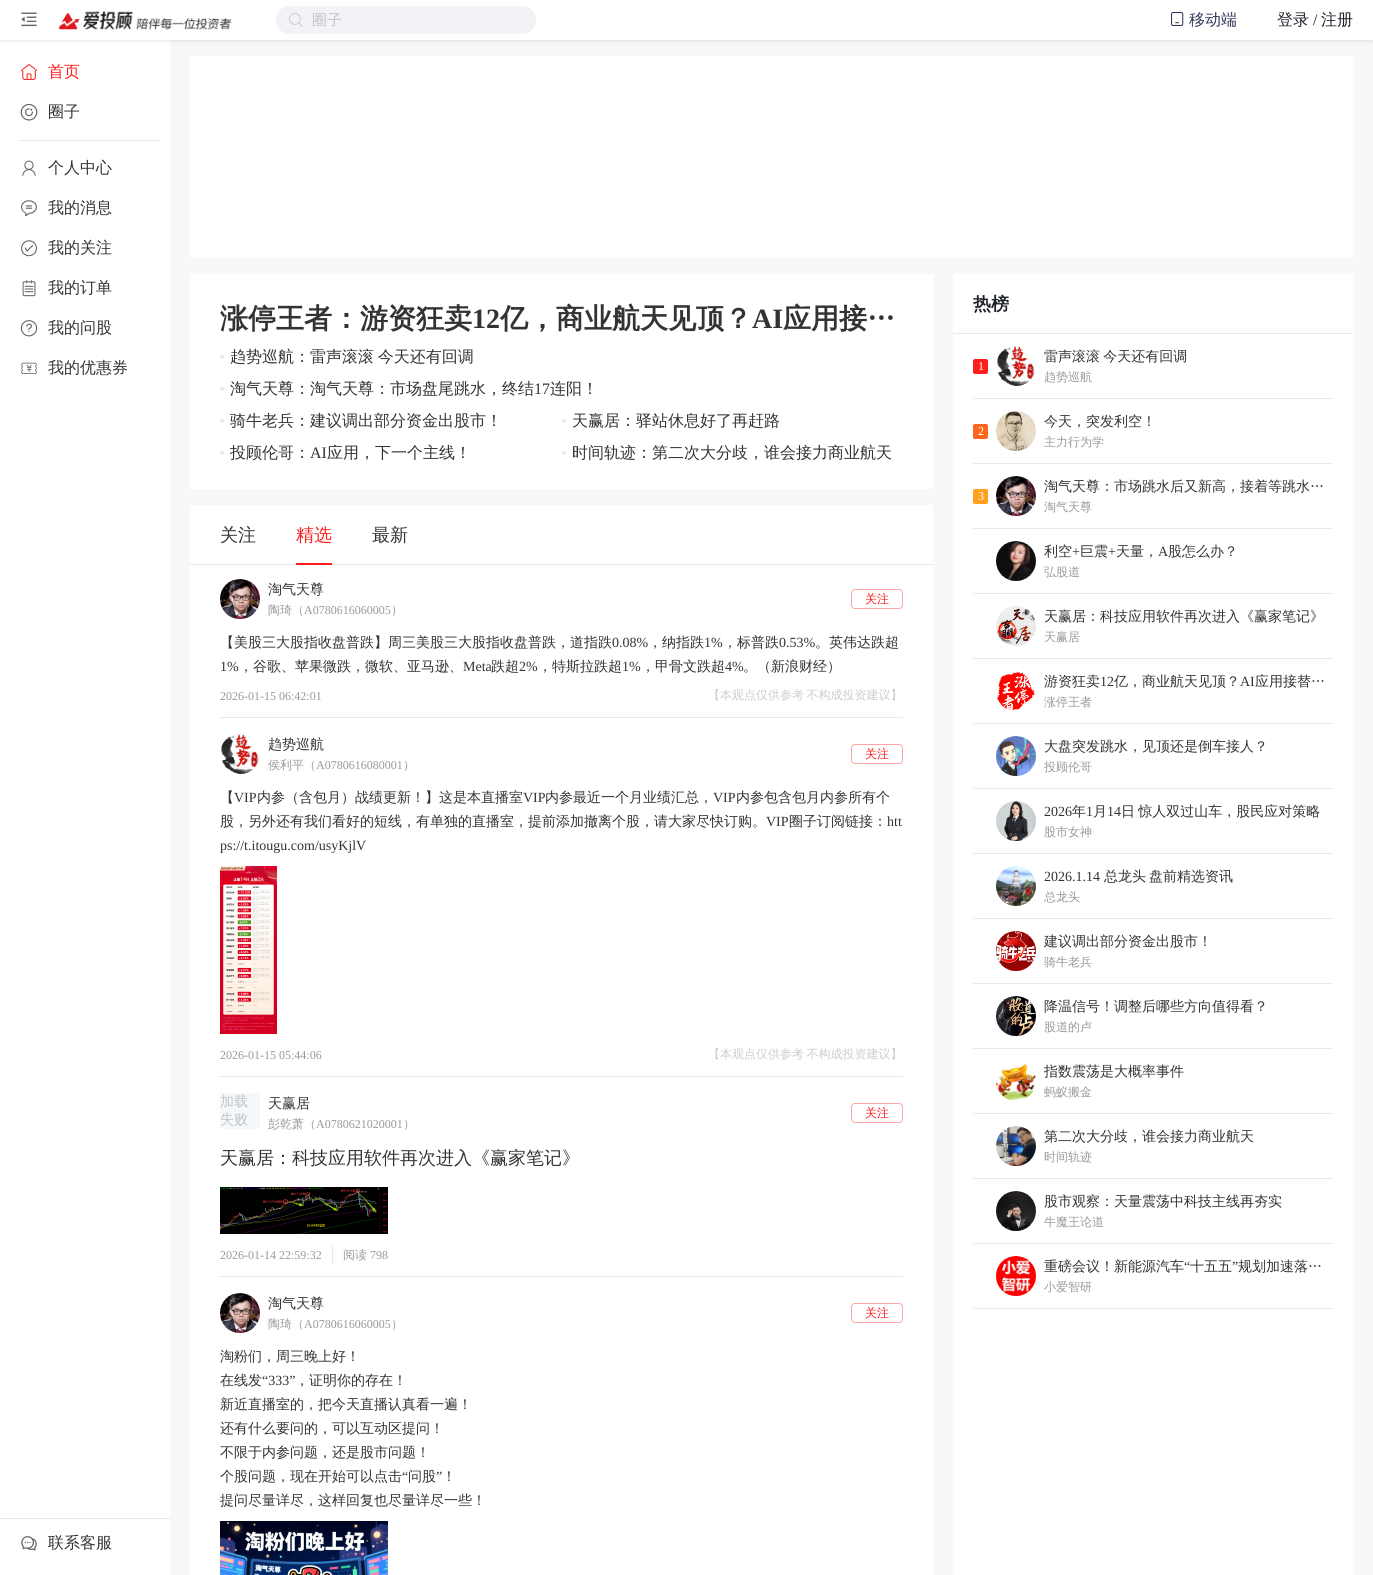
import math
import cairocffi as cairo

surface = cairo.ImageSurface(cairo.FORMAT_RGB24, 1373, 1575)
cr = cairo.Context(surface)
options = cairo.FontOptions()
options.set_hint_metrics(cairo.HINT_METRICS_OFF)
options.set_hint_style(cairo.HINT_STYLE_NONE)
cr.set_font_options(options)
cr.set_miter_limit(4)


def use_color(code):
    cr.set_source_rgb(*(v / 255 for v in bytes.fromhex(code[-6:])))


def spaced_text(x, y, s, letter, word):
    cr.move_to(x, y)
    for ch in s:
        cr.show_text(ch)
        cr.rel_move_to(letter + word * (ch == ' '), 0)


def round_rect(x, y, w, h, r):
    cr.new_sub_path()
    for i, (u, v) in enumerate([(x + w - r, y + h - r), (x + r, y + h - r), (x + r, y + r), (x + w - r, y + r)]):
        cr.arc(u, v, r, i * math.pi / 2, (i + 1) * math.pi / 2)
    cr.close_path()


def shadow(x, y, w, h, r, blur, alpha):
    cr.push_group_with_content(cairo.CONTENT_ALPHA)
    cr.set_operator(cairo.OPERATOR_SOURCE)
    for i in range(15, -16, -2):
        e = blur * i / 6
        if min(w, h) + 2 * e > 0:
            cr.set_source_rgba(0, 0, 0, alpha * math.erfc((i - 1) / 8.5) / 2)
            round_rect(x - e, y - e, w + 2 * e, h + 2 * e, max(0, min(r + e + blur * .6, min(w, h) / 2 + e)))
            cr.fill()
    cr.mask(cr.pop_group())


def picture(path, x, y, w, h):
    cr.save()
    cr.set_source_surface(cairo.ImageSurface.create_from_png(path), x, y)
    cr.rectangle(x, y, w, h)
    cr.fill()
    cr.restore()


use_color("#ffffff")
cr.paint()
use_color("#f8f8f8")
cr.rectangle(170, 40, 1203, 1535)
cr.fill()
use_color("#001529")
shadow(0, 1, 1373, 40, 0, 2, 0.12)
use_color("#ffffff")
cr.rectangle(0, 0, 1373, 40)
cr.fill()
picture("img1.png", 21, 12, 16, 15)
picture("img2.png", 58, 11, 174, 19)
use_color("#f2f2f7")
round_rect(276, 6, 260, 28, 14)
cr.fill()
picture("img3.png", 289, 13, 14, 14)
cr.select_font_face("WenQuanYi Zen Hei Medium")
cr.set_font_size(15)
use_color("#c0c4cc")
cr.move_to(312, 25)
cr.show_text("圈子")
picture("img4.png", 1171, 12, 13, 14)
cr.set_font_size(16)
use_color("#30365a")
cr.move_to(1189, 25)
cr.show_text("移动端")
use_color("#1f2129")
cr.move_to(1277, 25)
cr.show_text("登录")
cr.select_font_face("Liberation Serif")
cr.move_to(1313, 25)
cr.show_text("/")
cr.select_font_face("WenQuanYi Zen Hei Medium")
cr.move_to(1321, 25)
cr.show_text("注册")
picture("img5.png", 21, 64, 17, 16)
use_color("#fe1e1c")
cr.move_to(48, 77)
cr.show_text("首页")
picture("img6.png", 20, 103, 18, 18)
use_color("#333333")
cr.move_to(48, 117)
cr.show_text("圈子")
use_color("#e9e9e9")
cr.rectangle(20, 140, 140, 1)
cr.fill()
picture("img7.png", 22, 160, 14, 16)
use_color("#333333")
cr.move_to(48, 173)
cr.show_text("个人中心")
picture("img8.png", 21, 200, 16, 17)
cr.move_to(48, 213)
cr.show_text("我的消息")
picture("img9.png", 21, 240, 16, 17)
cr.move_to(48, 253)
cr.show_text("我的关注")
picture("img10.png", 22, 280, 14, 17)
cr.move_to(48, 293)
cr.show_text("我的订单")
picture("img11.png", 20, 320, 18, 17)
cr.move_to(48, 333)
cr.show_text("我的问股")
picture("img12.png", 21, 362, 16, 12)
cr.move_to(48, 373)
cr.show_text("我的优惠券")
use_color("#e9e9e9")
cr.rectangle(0, 1518, 170, 1)
cr.fill()
picture("img13.png", 21, 1536, 16, 15)
use_color("#333333")
cr.move_to(48, 1548)
cr.show_text("联系客服")
use_color("#ffffff")
cr.rectangle(190, 56, 1163, 1519)
cr.fill()
use_color("#f8f8f8")
cr.rectangle(190, 258, 1163, 16)
cr.fill()
cr.select_font_face("WenQuanYi Zen Hei", cairo.FONT_SLANT_NORMAL, cairo.FONT_WEIGHT_BOLD)
cr.set_font_size(28)
use_color("#333333")
cr.move_to(220, 328)
cr.show_text("涨停王者：游资狂卖")
cr.select_font_face("Liberation Serif", cairo.FONT_SLANT_NORMAL, cairo.FONT_WEIGHT_BOLD)
cr.move_to(472, 328)
cr.show_text("12")
cr.select_font_face("WenQuanYi Zen Hei", cairo.FONT_SLANT_NORMAL, cairo.FONT_WEIGHT_BOLD)
cr.move_to(500, 328)
cr.show_text("亿，商业航天见顶？")
cr.select_font_face("Liberation Serif", cairo.FONT_SLANT_NORMAL, cairo.FONT_WEIGHT_BOLD)
cr.move_to(752, 328)
cr.show_text("AI")
cr.select_font_face("WenQuanYi Zen Hei", cairo.FONT_SLANT_NORMAL, cairo.FONT_WEIGHT_BOLD)
cr.move_to(783, 328)
cr.show_text("应用接…")
use_color("#e9e9e9")
cr.new_path()
cr.arc(222, 357, 2, 0, 2 * math.pi)
cr.fill()
cr.select_font_face("WenQuanYi Zen Hei Medium")
cr.set_font_size(16)
use_color("#333333")
spaced_text(230, 362, "趋势巡航：雷声滚滚 今天还有回调", 0, -1)
use_color("#e9e9e9")
cr.new_path()
cr.arc(222, 389, 2, 0, 2 * math.pi)
cr.fill()
use_color("#333333")
cr.move_to(230, 394)
cr.show_text("淘气天尊：淘气天尊：市场盘尾跳水，终结")
cr.select_font_face("Liberation Serif")
cr.move_to(534, 394)
cr.show_text("17")
cr.select_font_face("WenQuanYi Zen Hei Medium")
cr.move_to(550, 394)
cr.show_text("连阳！")
use_color("#e9e9e9")
cr.new_path()
cr.arc(222, 421, 2, 0, 2 * math.pi)
cr.fill()
use_color("#333333")
cr.move_to(230, 426)
cr.show_text("骑牛老兵：建议调出部分资金出股市！")
use_color("#e9e9e9")
cr.new_path()
cr.arc(564, 421, 2, 0, 2 * math.pi)
cr.fill()
use_color("#333333")
cr.move_to(572, 426)
cr.show_text("天赢居：驿站休息好了再赶路")
use_color("#e9e9e9")
cr.new_path()
cr.arc(222, 453, 2, 0, 2 * math.pi)
cr.fill()
use_color("#333333")
cr.move_to(230, 458)
cr.show_text("投顾伦哥：")
cr.select_font_face("Liberation Serif")
cr.move_to(310, 458)
cr.show_text("AI")
cr.select_font_face("WenQuanYi Zen Hei Medium")
cr.move_to(327, 458)
cr.show_text("应用，下一个主线！")
use_color("#e9e9e9")
cr.new_path()
cr.arc(564, 453, 2, 0, 2 * math.pi)
cr.fill()
use_color("#333333")
cr.move_to(572, 458)
cr.show_text("时间轨迹：第二次大分歧，谁会接力商业航天")
use_color("#f8f8f8")
cr.rectangle(190, 489, 743, 16)
cr.fill()
cr.set_font_size(18)
use_color("#333333")
cr.move_to(220, 541)
cr.show_text("关注")
use_color("#fe1e1c")
cr.move_to(296, 541)
cr.show_text("精选")
use_color("#333333")
cr.move_to(372, 541)
cr.show_text("最新")
use_color("#e4e7ed")
cr.rectangle(190, 564, 743, 1)
cr.fill()
use_color("#fe1e1c")
cr.rectangle(296, 563, 36, 2)
cr.fill()
use_color("#e9e9e9")
cr.rectangle(220, 717, 683, 1)
cr.fill()
picture("img14.png", 220, 579, 40, 40)
cr.set_font_size(14)
use_color("#333333")
cr.move_to(268, 594)
cr.show_text("淘气天尊")
cr.set_font_size(12)
use_color("#999999")
cr.move_to(268, 614)
cr.show_text("陶琦（")
cr.select_font_face("Liberation Serif")
cr.move_to(304, 614)
cr.show_text("A0780616060005")
cr.select_font_face("WenQuanYi Zen Hei Medium")
cr.move_to(391, 614)
cr.show_text("）")
round_rect(851.5, 589.5, 51, 19, 3.5)
use_color("#ffa5a4")
cr.set_line_width(1)
cr.stroke()
use_color("#fe1e1c")
cr.move_to(865, 603)
cr.show_text("关注")
cr.set_font_size(14)
use_color("#333333")
cr.move_to(220, 647)
cr.show_text("【美股三大股指收盘普跌】周三美股三大股指收盘普跌，道指跌")
cr.select_font_face("Liberation Serif")
cr.move_to(612, 647)
cr.show_text("0.08%")
cr.select_font_face("WenQuanYi Zen Hei Medium")
cr.move_to(648, 647)
cr.show_text("，纳指跌")
cr.select_font_face("Liberation Serif")
cr.move_to(704, 647)
cr.show_text("1%")
cr.select_font_face("WenQuanYi Zen Hei Medium")
cr.move_to(723, 647)
cr.show_text("，标普跌")
cr.select_font_face("Liberation Serif")
cr.move_to(779, 647)
cr.show_text("0.53%")
cr.select_font_face("WenQuanYi Zen Hei Medium")
cr.move_to(815, 647)
cr.show_text("。英伟达跌超")
cr.select_font_face("Liberation Serif")
cr.move_to(220, 671)
cr.show_text("1%")
cr.select_font_face("WenQuanYi Zen Hei Medium")
cr.move_to(239, 671)
cr.show_text("，谷歌、苹果微跌，微软、亚马逊、")
cr.select_font_face("Liberation Serif")
cr.move_to(463, 671)
cr.show_text("Meta")
cr.select_font_face("WenQuanYi Zen Hei Medium")
cr.move_to(491, 671)
cr.show_text("跌超")
cr.select_font_face("Liberation Serif")
cr.move_to(519, 671)
cr.show_text("2%")
cr.select_font_face("WenQuanYi Zen Hei Medium")
cr.move_to(538, 671)
cr.show_text("，特斯拉跌超")
cr.select_font_face("Liberation Serif")
cr.move_to(622, 671)
cr.show_text("1%")
cr.select_font_face("WenQuanYi Zen Hei Medium")
cr.move_to(641, 671)
cr.show_text("，甲骨文跌超")
cr.select_font_face("Liberation Serif")
cr.move_to(725, 671)
cr.show_text("4%")
cr.select_font_face("WenQuanYi Zen Hei Medium")
cr.move_to(743, 671)
cr.show_text("。（新浪财经）")
cr.select_font_face("Liberation Serif")
cr.set_font_size(12)
use_color("#999999")
cr.move_to(220, 700)
cr.show_text("2026-01-15 06:42:01")
cr.select_font_face("WenQuanYi Zen Hei Medium")
use_color("#cccccc")
spaced_text(708, 699, "【本观点仅供参考 不构成投资建议】", 0, -1)
use_color("#e9e9e9")
cr.rectangle(220, 1076, 683, 1)
cr.fill()
picture("img15.png", 221, 734, 38, 40)
cr.set_font_size(14)
use_color("#333333")
cr.move_to(268, 749)
cr.show_text("趋势巡航")
cr.set_font_size(12)
use_color("#999999")
cr.move_to(268, 769)
cr.show_text("侯利平（")
cr.select_font_face("Liberation Serif")
cr.move_to(316, 769)
cr.show_text("A0780616080001")
cr.select_font_face("WenQuanYi Zen Hei Medium")
cr.move_to(403, 769)
cr.show_text("）")
round_rect(851.5, 744.5, 51, 19, 3.5)
use_color("#ffa5a4")
cr.stroke()
use_color("#fe1e1c")
cr.move_to(865, 758)
cr.show_text("关注")
cr.set_font_size(14)
use_color("#333333")
cr.move_to(220, 802)
cr.show_text("【")
cr.select_font_face("Liberation Serif")
cr.move_to(234, 802)
cr.show_text("VIP")
cr.select_font_face("WenQuanYi Zen Hei Medium")
cr.move_to(257, 802)
cr.show_text("内参（含包月）战绩更新！】这是本直播室")
cr.select_font_face("Liberation Serif")
cr.move_to(523, 802)
cr.show_text("VIP")
cr.select_font_face("WenQuanYi Zen Hei Medium")
cr.move_to(545, 802)
cr.show_text("内参最近一个月业绩汇总，")
cr.select_font_face("Liberation Serif")
cr.move_to(713, 802)
cr.show_text("VIP")
cr.select_font_face("WenQuanYi Zen Hei Medium")
cr.move_to(736, 802)
cr.show_text("内参包含包月内参所有个")
cr.move_to(220, 826)
cr.show_text("股，另外还有我们看好的短线，有单独的直播室，提前添加撤离个股，请大家尽快订购。")
cr.select_font_face("Liberation Serif")
cr.move_to(766, 826)
cr.show_text("VIP")
cr.select_font_face("WenQuanYi Zen Hei Medium")
cr.move_to(789, 826)
cr.show_text("圈子订阅链接：")
cr.select_font_face("Liberation Serif")
cr.move_to(887, 826)
cr.show_text("htt")
cr.move_to(220, 850)
cr.show_text("ps://t.itougu.com/usyKjlV")
picture("img16.png", 220, 866, 57, 168)
cr.set_font_size(12)
use_color("#999999")
cr.move_to(220, 1059)
cr.show_text("2026-01-15 05:44:06")
cr.select_font_face("WenQuanYi Zen Hei Medium")
use_color("#cccccc")
spaced_text(708, 1058, "【本观点仅供参考 不构成投资建议】", 0, -1)
use_color("#e9e9e9")
cr.rectangle(220, 1276, 683, 1)
cr.fill()
use_color("#f5f7fa")
cr.rectangle(220, 1093, 40, 36)
cr.fill()
cr.set_font_size(14)
use_color("#c0c4cc")
cr.move_to(220, 1106)
cr.show_text("加载")
cr.move_to(220, 1124)
cr.show_text("失败")
use_color("#333333")
cr.move_to(268, 1108)
cr.show_text("天赢居")
cr.set_font_size(12)
use_color("#999999")
cr.move_to(268, 1128)
cr.show_text("彭乾萧（")
cr.select_font_face("Liberation Serif")
cr.move_to(316, 1128)
cr.show_text("A0780621020001")
cr.select_font_face("WenQuanYi Zen Hei Medium")
cr.move_to(403, 1128)
cr.show_text("）")
round_rect(851.5, 1103.5, 51, 19, 3.5)
use_color("#ffa5a4")
cr.stroke()
use_color("#fe1e1c")
cr.move_to(865, 1117)
cr.show_text("关注")
cr.set_font_size(18)
use_color("#333333")
cr.move_to(220, 1164)
cr.show_text("天赢居：科技应用软件再次进入《赢家笔记》")
picture("img17.png", 220, 1187, 168, 47)
cr.select_font_face("Liberation Serif")
cr.set_font_size(12)
use_color("#999999")
cr.move_to(220, 1259)
cr.show_text("2026-01-14 22:59:32")
use_color("#e9e9e9")
cr.rectangle(332, 1246, 1, 18)
cr.fill()
cr.select_font_face("WenQuanYi Zen Hei Medium")
use_color("#999999")
cr.move_to(343, 1259)
cr.show_text("阅读")
cr.select_font_face("Liberation Serif")
cr.move_to(370, 1259)
cr.show_text("798")
picture("img18.png", 220, 1293, 40, 40)
cr.select_font_face("WenQuanYi Zen Hei Medium")
cr.set_font_size(14)
use_color("#333333")
cr.move_to(268, 1308)
cr.show_text("淘气天尊")
cr.set_font_size(12)
use_color("#999999")
cr.move_to(268, 1328)
cr.show_text("陶琦（")
cr.select_font_face("Liberation Serif")
cr.move_to(304, 1328)
cr.show_text("A0780616060005")
cr.select_font_face("WenQuanYi Zen Hei Medium")
cr.move_to(391, 1328)
cr.show_text("）")
round_rect(851.5, 1303.5, 51, 19, 3.5)
use_color("#ffa5a4")
cr.stroke()
use_color("#fe1e1c")
cr.move_to(865, 1317)
cr.show_text("关注")
cr.set_font_size(14)
use_color("#333333")
cr.move_to(220, 1361)
cr.show_text("淘粉们，周三晚上好！")
cr.move_to(220, 1385)
cr.show_text("在线发")
cr.select_font_face("Liberation Serif")
cr.move_to(262, 1385)
cr.show_text("“333”")
cr.select_font_face("WenQuanYi Zen Hei Medium")
cr.move_to(295, 1385)
cr.show_text("，证明你的存在！")
cr.move_to(220, 1409)
cr.show_text("新近直播室的，把今天直播认真看一遍！")
cr.move_to(220, 1433)
cr.show_text("还有什么要问的，可以互动区提问！")
cr.move_to(220, 1457)
cr.show_text("不限于内参问题，还是股市问题！")
cr.move_to(220, 1481)
cr.show_text("个股问题，现在开始可以点击")
cr.select_font_face("Liberation Serif")
cr.move_to(402, 1481)
cr.show_text("“")
cr.select_font_face("WenQuanYi Zen Hei Medium")
cr.move_to(408, 1481)
cr.show_text("问股")
cr.select_font_face("Liberation Serif")
cr.move_to(436, 1481)
cr.show_text("”")
cr.select_font_face("WenQuanYi Zen Hei Medium")
cr.move_to(442, 1481)
cr.show_text("！")
cr.move_to(220, 1505)
cr.show_text("提问尽量详尽，这样回复也尽量详尽一些！")
picture("img19.png", 220, 1521, 168, 54)
use_color("#f8f8f8")
cr.rectangle(933, 274, 20, 1301)
cr.fill()
use_color("#e9e9e9")
cr.rectangle(953, 333, 400, 1)
cr.fill()
cr.select_font_face("WenQuanYi Zen Hei", cairo.FONT_SLANT_NORMAL, cairo.FONT_WEIGHT_BOLD)
cr.set_font_size(18)
use_color("#1f2129")
cr.move_to(973, 310)
cr.show_text("热榜")
use_color("#e9e9e9")
cr.rectangle(973, 398, 360, 1)
cr.fill()
use_color("#fe1e1c")
round_rect(973, 359, 15, 15, 2)
cr.fill()
cr.select_font_face("Liberation Serif")
cr.set_font_size(12)
use_color("#ffffff")
cr.move_to(978, 370)
cr.show_text("1")
picture("img20.png", 997, 346, 38, 40)
cr.select_font_face("WenQuanYi Zen Hei Medium")
cr.set_font_size(14)
use_color("#333333")
spaced_text(1044, 361, "雷声滚滚 今天还有回调", 0, -1)
cr.set_font_size(12)
use_color("#999999")
cr.move_to(1044, 381)
cr.show_text("趋势巡航")
use_color("#e9e9e9")
cr.rectangle(973, 463, 360, 1)
cr.fill()
use_color("#fe651c")
round_rect(973, 424, 15, 15, 2)
cr.fill()
cr.select_font_face("Liberation Serif")
use_color("#ffffff")
cr.move_to(978, 435)
cr.show_text("2")
picture("img21.png", 996, 411, 40, 40)
cr.select_font_face("WenQuanYi Zen Hei Medium")
cr.set_font_size(14)
use_color("#333333")
cr.move_to(1044, 426)
cr.show_text("今天，突发利空！")
cr.set_font_size(12)
use_color("#999999")
cr.move_to(1044, 446)
cr.show_text("主力行为学")
use_color("#e9e9e9")
cr.rectangle(973, 528, 360, 1)
cr.fill()
use_color("#fea01c")
round_rect(973, 489, 15, 15, 2)
cr.fill()
cr.select_font_face("Liberation Serif")
use_color("#ffffff")
cr.move_to(978, 500)
cr.show_text("3")
picture("img22.png", 996, 476, 40, 40)
cr.select_font_face("WenQuanYi Zen Hei Medium")
cr.set_font_size(14)
use_color("#333333")
cr.move_to(1044, 491)
cr.show_text("淘气天尊：市场跳水后又新高，接着等跳水…")
cr.set_font_size(12)
use_color("#999999")
cr.move_to(1044, 511)
cr.show_text("淘气天尊")
use_color("#e9e9e9")
cr.rectangle(973, 593, 360, 1)
cr.fill()
picture("img23.png", 996, 541, 40, 40)
cr.set_font_size(14)
use_color("#333333")
cr.move_to(1044, 556)
cr.show_text("利空")
cr.select_font_face("Liberation Serif")
cr.move_to(1072, 556)
cr.show_text("+")
cr.select_font_face("WenQuanYi Zen Hei Medium")
cr.move_to(1080, 556)
cr.show_text("巨震")
cr.select_font_face("Liberation Serif")
cr.move_to(1108, 556)
cr.show_text("+")
cr.select_font_face("WenQuanYi Zen Hei Medium")
cr.move_to(1116, 556)
cr.show_text("天量，")
cr.select_font_face("Liberation Serif")
cr.move_to(1158, 556)
cr.show_text("A")
cr.select_font_face("WenQuanYi Zen Hei Medium")
cr.move_to(1168, 556)
cr.show_text("股怎么办？")
cr.set_font_size(12)
use_color("#999999")
cr.move_to(1044, 576)
cr.show_text("弘股道")
use_color("#e9e9e9")
cr.rectangle(973, 658, 360, 1)
cr.fill()
picture("img24.png", 996, 606, 40, 40)
cr.set_font_size(14)
use_color("#333333")
cr.move_to(1044, 621)
cr.show_text("天赢居：科技应用软件再次进入《赢家笔记》")
cr.set_font_size(12)
use_color("#999999")
cr.move_to(1044, 641)
cr.show_text("天赢居")
use_color("#e9e9e9")
cr.rectangle(973, 723, 360, 1)
cr.fill()
picture("img25.png", 997, 671, 38, 40)
cr.set_font_size(14)
use_color("#333333")
cr.move_to(1044, 686)
cr.show_text("游资狂卖")
cr.select_font_face("Liberation Serif")
cr.move_to(1100, 686)
cr.show_text("12")
cr.select_font_face("WenQuanYi Zen Hei Medium")
cr.move_to(1114, 686)
cr.show_text("亿，商业航天见顶？")
cr.select_font_face("Liberation Serif")
cr.move_to(1240, 686)
cr.show_text("AI")
cr.select_font_face("WenQuanYi Zen Hei Medium")
cr.move_to(1255, 686)
cr.show_text("应用接替…")
cr.set_font_size(12)
use_color("#999999")
cr.move_to(1044, 706)
cr.show_text("涨停王者")
use_color("#e9e9e9")
cr.rectangle(973, 788, 360, 1)
cr.fill()
picture("img26.png", 996, 736, 40, 40)
cr.set_font_size(14)
use_color("#333333")
cr.move_to(1044, 751)
cr.show_text("大盘突发跳水，见顶还是倒车接人？")
cr.set_font_size(12)
use_color("#999999")
cr.move_to(1044, 771)
cr.show_text("投顾伦哥")
use_color("#e9e9e9")
cr.rectangle(973, 853, 360, 1)
cr.fill()
picture("img27.png", 996, 801, 40, 40)
cr.select_font_face("Liberation Serif")
cr.set_font_size(14)
use_color("#333333")
cr.move_to(1044, 816)
cr.show_text("2026")
cr.select_font_face("WenQuanYi Zen Hei Medium")
cr.move_to(1072, 816)
cr.show_text("年")
cr.select_font_face("Liberation Serif")
cr.move_to(1086, 816)
cr.show_text("1")
cr.select_font_face("WenQuanYi Zen Hei Medium")
cr.move_to(1093, 816)
cr.show_text("月")
cr.select_font_face("Liberation Serif")
cr.move_to(1107, 816)
cr.show_text("14")
cr.select_font_face("WenQuanYi Zen Hei Medium")
spaced_text(1121, 816, "日 惊人双过山车，股民应对策略", 0, -1)
cr.set_font_size(12)
use_color("#999999")
cr.move_to(1044, 836)
cr.show_text("股市女神")
use_color("#e9e9e9")
cr.rectangle(973, 918, 360, 1)
cr.fill()
picture("img28.png", 996, 866, 40, 40)
cr.select_font_face("Liberation Serif")
cr.set_font_size(14)
use_color("#333333")
cr.move_to(1044, 881)
cr.show_text("2026.1.14")
cr.select_font_face("WenQuanYi Zen Hei Medium")
cr.move_to(1104, 881)
cr.show_text("总龙头")
cr.move_to(1149, 881)
cr.show_text("盘前精选资讯")
cr.set_font_size(12)
use_color("#999999")
cr.move_to(1044, 901)
cr.show_text("总龙头")
use_color("#e9e9e9")
cr.rectangle(973, 983, 360, 1)
cr.fill()
picture("img29.png", 996, 931, 40, 40)
cr.set_font_size(14)
use_color("#333333")
cr.move_to(1044, 946)
cr.show_text("建议调出部分资金出股市！")
cr.set_font_size(12)
use_color("#999999")
cr.move_to(1044, 966)
cr.show_text("骑牛老兵")
use_color("#e9e9e9")
cr.rectangle(973, 1048, 360, 1)
cr.fill()
picture("img30.png", 996, 996, 40, 40)
cr.set_font_size(14)
use_color("#333333")
cr.move_to(1044, 1011)
cr.show_text("降温信号！调整后哪些方向值得看？")
cr.set_font_size(12)
use_color("#999999")
cr.move_to(1044, 1031)
cr.show_text("股道的卢")
use_color("#e9e9e9")
cr.rectangle(973, 1113, 360, 1)
cr.fill()
picture("img31.png", 996, 1064, 40, 37)
cr.set_font_size(14)
use_color("#333333")
cr.move_to(1044, 1076)
cr.show_text("指数震荡是大概率事件")
cr.set_font_size(12)
use_color("#999999")
cr.move_to(1044, 1096)
cr.show_text("蚂蚁搬金")
use_color("#e9e9e9")
cr.rectangle(973, 1178, 360, 1)
cr.fill()
picture("img32.png", 996, 1126, 40, 40)
cr.set_font_size(14)
use_color("#333333")
cr.move_to(1044, 1141)
cr.show_text("第二次大分歧，谁会接力商业航天")
cr.set_font_size(12)
use_color("#999999")
cr.move_to(1044, 1161)
cr.show_text("时间轨迹")
use_color("#e9e9e9")
cr.rectangle(973, 1243, 360, 1)
cr.fill()
picture("img33.png", 996, 1191, 40, 40)
cr.set_font_size(14)
use_color("#333333")
cr.move_to(1044, 1206)
cr.show_text("股市观察：天量震荡中科技主线再夯实")
cr.set_font_size(12)
use_color("#999999")
cr.move_to(1044, 1226)
cr.show_text("牛魔王论道")
use_color("#e9e9e9")
cr.rectangle(973, 1308, 360, 1)
cr.fill()
picture("img34.png", 996, 1256, 40, 40)
cr.set_font_size(14)
use_color("#333333")
cr.move_to(1044, 1271)
cr.show_text("重磅会议！新能源汽车")
cr.select_font_face("Liberation Serif")
cr.move_to(1184, 1271)
cr.show_text("“")
cr.select_font_face("WenQuanYi Zen Hei Medium")
cr.move_to(1190, 1271)
cr.show_text("十五五")
cr.select_font_face("Liberation Serif")
cr.move_to(1232, 1271)
cr.show_text("”")
cr.select_font_face("WenQuanYi Zen Hei Medium")
cr.move_to(1238, 1271)
cr.show_text("规划加速落…")
cr.set_font_size(12)
use_color("#999999")
cr.move_to(1044, 1291)
cr.show_text("小爱智研")
surface.write_to_png("result.png")
